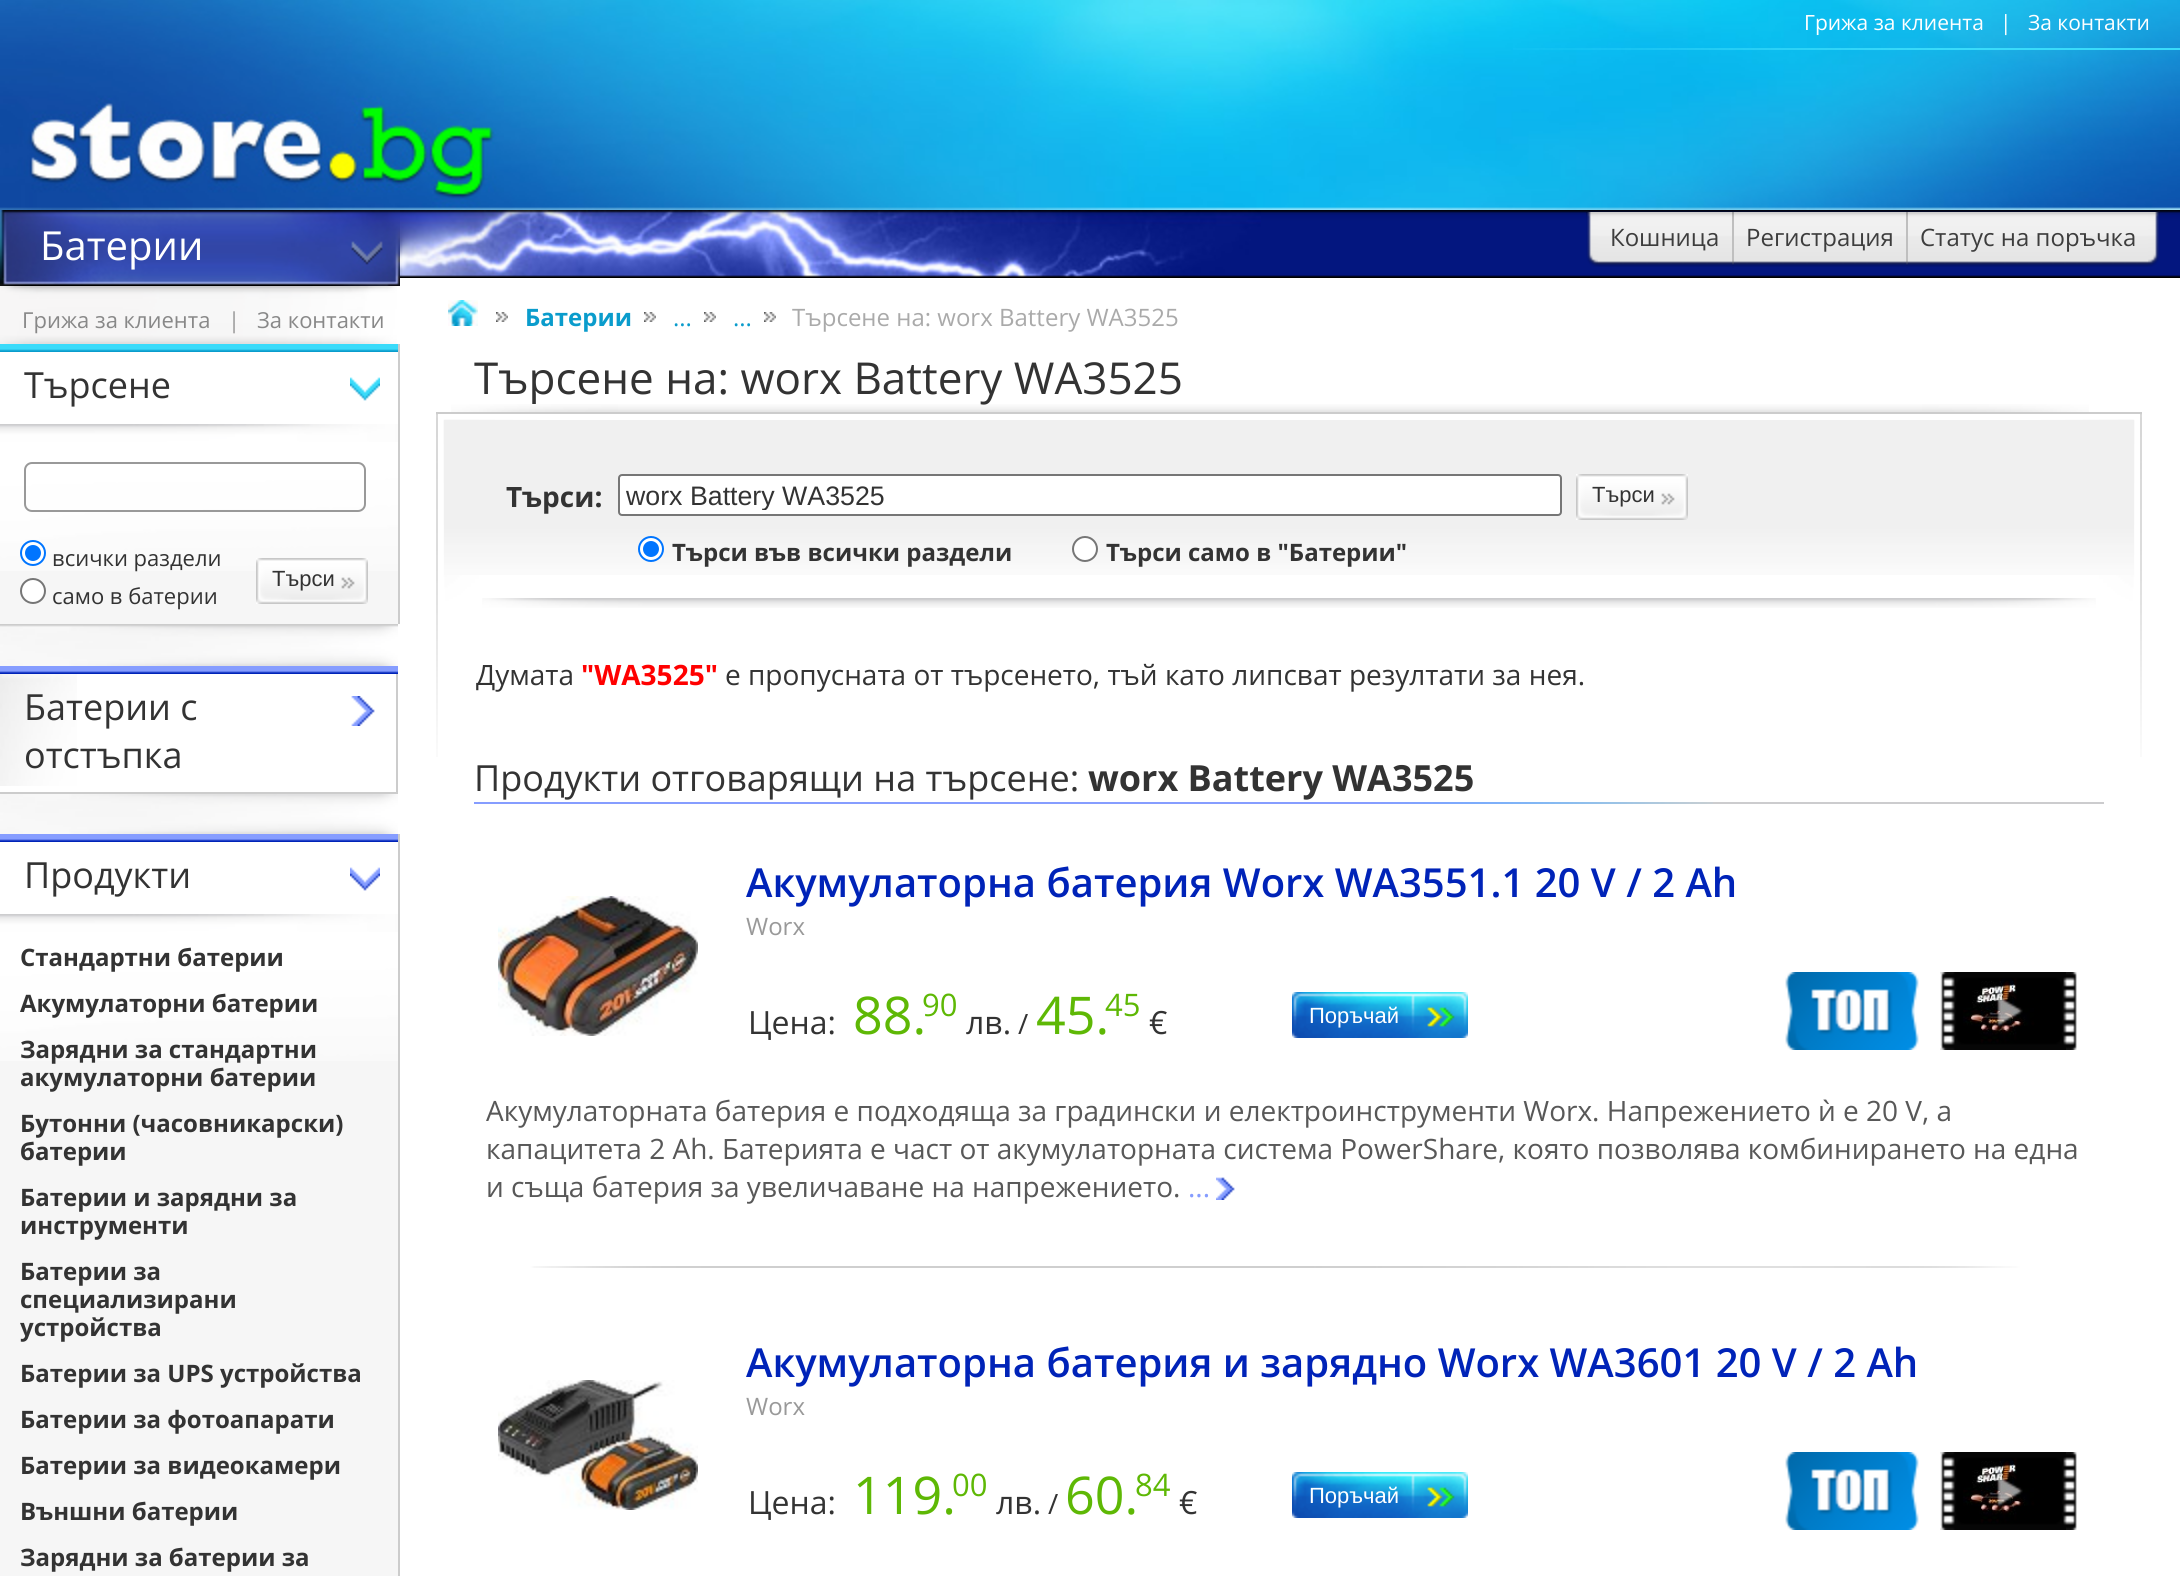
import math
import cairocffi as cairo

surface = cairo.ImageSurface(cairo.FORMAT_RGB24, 2180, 1576)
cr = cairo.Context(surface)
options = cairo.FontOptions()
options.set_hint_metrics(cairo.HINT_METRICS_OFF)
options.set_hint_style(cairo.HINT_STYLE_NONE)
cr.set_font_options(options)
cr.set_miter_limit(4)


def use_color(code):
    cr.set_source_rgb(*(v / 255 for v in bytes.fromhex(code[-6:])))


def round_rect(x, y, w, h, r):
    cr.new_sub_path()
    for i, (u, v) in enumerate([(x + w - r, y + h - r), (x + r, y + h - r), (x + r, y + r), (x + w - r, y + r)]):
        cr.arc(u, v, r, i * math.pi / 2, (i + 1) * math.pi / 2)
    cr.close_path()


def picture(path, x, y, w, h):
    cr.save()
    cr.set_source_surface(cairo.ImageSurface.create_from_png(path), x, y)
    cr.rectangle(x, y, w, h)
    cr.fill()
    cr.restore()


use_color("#ffffff")
cr.paint()
picture("img1.png", 504, 0, 1676, 210)
picture("img2.png", 0, 0, 504, 210)
picture("img3.png", 1513, 48, 667, 2)
cr.select_font_face("Open Sans")
cr.set_font_size(21)
use_color("#ffffff")
cr.move_to(1804, 30)
cr.show_text("Грижа за клиента")
cr.move_to(2000, 30)
cr.show_text("|")
cr.move_to(2028, 30)
cr.show_text("За контакти")
picture("img4.png", 400, 210, 1780, 68)
picture("img5.png", 0, 210, 400, 76)
cr.set_font_size(40)
cr.move_to(40, 260)
cr.show_text("Батерии")
picture("img6.png", 400, 210, 861, 67)
picture("img7.png", 1586, 212, 12, 55)
picture("img8.png", 1598, 212, 134, 55)
cr.set_font_size(24)
use_color("#3d3d3d")
cr.move_to(1610, 246)
cr.show_text("Кошница")
picture("img9.png", 1732, 212, 2, 56)
picture("img10.png", 1734, 212, 172, 55)
cr.move_to(1746, 246)
cr.show_text("Регистрация")
picture("img9.png", 1906, 212, 2, 56)
picture("img11.png", 1908, 212, 240, 55)
cr.move_to(1920, 246)
cr.show_text("Статус на поръчка")
picture("img12.png", 2148, 212, 12, 55)
picture("img13.png", 0, 286, 397, 58)
cr.set_font_size(22)
use_color("#888888")
cr.move_to(22, 328)
cr.show_text("Грижа за клиента")
use_color("#999999")
cr.move_to(228, 328)
cr.show_text("|")
use_color("#888888")
cr.move_to(257, 328)
cr.show_text("За контакти")
picture("img14.png", 448, 300, 30, 26)
picture("img15.png", 496, 312, 12, 10)
cr.select_font_face("Open Sans", cairo.FONT_SLANT_NORMAL, cairo.FONT_WEIGHT_BOLD)
cr.set_font_size(24)
use_color("#0a9ccc")
cr.move_to(525, 326)
cr.show_text("Батерии")
picture("img15.png", 644, 312, 12, 10)
picture("img15.png", 704, 312, 12, 10)
picture("img15.png", 764, 312, 12, 10)
cr.select_font_face("Open Sans")
use_color("#aaaaaa")
cr.move_to(792, 326)
cr.show_text("Търсене на: worx Battery WA3525")
use_color("#0a9ccc")
cr.move_to(673, 326)
cr.show_text("...")
cr.move_to(733, 326)
cr.show_text("...")
use_color("#f6f6f6")
cr.rectangle(0, 477, 398, 147)
cr.fill()
use_color("#cccccc")
cr.rectangle(398, 344, 2, 280)
cr.fill()
picture("img16.png", 0, 344, 398, 8)
picture("img17.png", 350, 377, 30, 24)
cr.set_font_size(36)
use_color("#333333")
cr.move_to(24, 398)
cr.show_text("Търсене")
picture("img18.png", 0, 424, 398, 18)
picture("img19.png", 0, 442, 398, 129)
round_rect(25, 463, 340, 48, 7)
use_color("#999999")
cr.stroke()
use_color("#ffffff")
cr.arc(33, 553, 12, 0, 2 * math.pi)
cr.fill_preserve()
use_color("#0075ff")
cr.stroke()
cr.arc(33, 553, 8, 0, 2 * math.pi)
cr.fill()
cr.set_font_size(22)
use_color("#333333")
cr.move_to(52, 566)
cr.show_text("всички раздели")
picture("img20.png", 256, 558, 112, 46)
cr.select_font_face("Liberation Sans")
cr.move_to(272, 586)
cr.show_text("Търси")
use_color("#ffffff")
cr.new_path()
cr.arc(33, 591, 12, 0, 2 * math.pi)
cr.fill_preserve()
use_color("#767676")
cr.stroke()
cr.select_font_face("Open Sans")
use_color("#333333")
cr.move_to(52, 604)
cr.show_text("само в батерии")
picture("img21.png", 0, 624, 398, 42)
picture("img22.png", 0, 666, 398, 8)
picture("img23.png", 0, 674, 77, 112)
use_color("#cccccc")
cr.rectangle(396, 674, 2, 120)
cr.fill()
cr.rectangle(0, 792, 398, 2)
cr.fill()
picture("img24.png", 351, 696, 24, 30)
cr.set_font_size(36)
use_color("#333333")
cr.move_to(24, 720)
cr.show_text("Батерии с")
cr.move_to(24, 768)
cr.show_text("отстъпка")
picture("img25.png", 0, 794, 398, 40)
use_color("#cccccc")
cr.rectangle(398, 834, 2, 742)
cr.fill()
picture("img22.png", 0, 834, 398, 8)
picture("img26.png", 350, 867, 30, 24)
use_color("#333333")
cr.move_to(24, 888)
cr.show_text("Продукти")
picture("img18.png", 0, 914, 398, 18)
use_color("#f6f6f6")
cr.rectangle(0, 967, 398, 609)
cr.fill()
picture("img19.png", 0, 932, 398, 129)
cr.select_font_face("Open Sans", cairo.FONT_SLANT_NORMAL, cairo.FONT_WEIGHT_BOLD)
cr.set_font_size(24)
use_color("#333333")
cr.move_to(20, 966)
cr.show_text("Стандартни батерии")
cr.move_to(20, 1012)
cr.show_text("Акумулаторни батерии")
cr.move_to(20, 1058)
cr.show_text("Зарядни за стандартни")
cr.move_to(20, 1086)
cr.show_text("акумулаторни батерии")
cr.move_to(20, 1132)
cr.show_text("Бутонни (часовникарски)")
cr.move_to(20, 1160)
cr.show_text("батерии")
cr.move_to(20, 1206)
cr.show_text("Батерии и зарядни за")
cr.move_to(20, 1234)
cr.show_text("инструменти")
cr.move_to(20, 1280)
cr.show_text("Батерии за")
cr.move_to(20, 1308)
cr.show_text("специализирани")
cr.move_to(20, 1336)
cr.show_text("устройства")
cr.move_to(20, 1382)
cr.show_text("Батерии за UPS устройства")
cr.move_to(20, 1428)
cr.show_text("Батерии за фотоапарати")
cr.move_to(20, 1474)
cr.show_text("Батерии за видеокамери")
cr.move_to(20, 1520)
cr.show_text("Външни батерии")
cr.move_to(20, 1566)
cr.show_text("Зарядни за батерии за")
cr.select_font_face("Open Sans")
cr.set_font_size(44)
cr.move_to(474, 394)
cr.show_text("Търсене на: worx Battery WA3525")
picture("img27.png", 451, 404, 1638, 8)
picture("img28.png", 436, 414, 1706, 343)
use_color("#cccccc")
cr.rectangle(436, 412, 1706, 2)
cr.fill()
picture("img29.png", 444, 420, 1690, 155)
cr.select_font_face("Open Sans", cairo.FONT_SLANT_NORMAL, cairo.FONT_WEIGHT_BOLD)
cr.set_font_size(28)
use_color("#333333")
cr.move_to(506, 507)
cr.show_text("Търси:")
use_color("#ffffff")
round_rect(619, 475, 942, 40, 3)
cr.fill_preserve()
use_color("#767676")
cr.stroke()
cr.save()
cr.rectangle(626, 480, 928, 30)
cr.clip()
cr.select_font_face("Liberation Sans")
cr.set_font_size(26.75)
use_color("#333333")
cr.move_to(626, 505)
cr.show_text("worx Battery WA3525")
cr.restore()
picture("img30.png", 1576, 474, 112, 46)
cr.select_font_face("Liberation Sans")
cr.set_font_size(22)
use_color("#333333")
cr.move_to(1592, 502)
cr.show_text("Търси")
use_color("#ffffff")
cr.new_path()
cr.arc(651, 549, 12, 0, 2 * math.pi)
cr.fill_preserve()
use_color("#0075ff")
cr.stroke()
cr.arc(651, 549, 8, 0, 2 * math.pi)
cr.fill()
cr.select_font_face("Open Sans", cairo.FONT_SLANT_NORMAL, cairo.FONT_WEIGHT_BOLD)
cr.set_font_size(24)
use_color("#333333")
cr.move_to(672, 561)
cr.show_text("Търси във всички раздели")
use_color("#ffffff")
cr.new_path()
cr.arc(1085, 549, 12, 0, 2 * math.pi)
cr.fill_preserve()
use_color("#767676")
cr.stroke()
use_color("#333333")
cr.move_to(1106, 561)
cr.show_text("Търси само в \"Батерии\"")
picture("img31.png", 482, 598, 1614, 10)
cr.select_font_face("Open Sans")
cr.set_font_size(28)
cr.move_to(476, 685)
cr.show_text("Думата")
cr.select_font_face("Open Sans", cairo.FONT_SLANT_NORMAL, cairo.FONT_WEIGHT_BOLD)
use_color("#ff0000")
cr.move_to(581, 685)
cr.show_text("\"WA3525\"")
cr.select_font_face("Open Sans")
use_color("#333333")
cr.move_to(725, 685)
cr.show_text("е пропусната от търсенето, тъй като липсват резултати за нея.")
cr.set_font_size(36)
cr.move_to(474, 791)
cr.show_text("Продукти отговарящи на търсене:")
cr.select_font_face("Open Sans", cairo.FONT_SLANT_NORMAL, cairo.FONT_WEIGHT_BOLD)
cr.move_to(1088, 791)
cr.show_text("worx Battery WA3525")
use_color("#ccccce")
cr.rectangle(1713, 802, 391, 2)
cr.fill()
picture("img32.png", 474, 802, 1239, 2)
picture("img33.png", 498, 896, 200, 140)
cr.select_font_face("Open Sans SemiBold")
cr.set_font_size(40)
use_color("#0023b8")
cr.move_to(746, 897)
cr.show_text("Акумулаторна батерия Worx WA3551.1 20 V / 2 Ah")
cr.select_font_face("Open Sans")
cr.set_font_size(24)
use_color("#999999")
cr.move_to(746, 935)
cr.show_text("Worx")
cr.set_font_size(32)
use_color("#333333")
cr.move_to(748, 1034)
cr.show_text("Цена:")
cr.set_font_size(52)
use_color("#5eb805")
cr.move_to(853, 1034)
cr.show_text("88.")
cr.set_font_size(31)
cr.move_to(922, 1016)
cr.show_text("90")
cr.set_font_size(32)
use_color("#333333")
cr.move_to(966, 1034)
cr.show_text("лв.")
cr.set_font_size(28)
cr.move_to(1018, 1034)
cr.show_text("/")
cr.set_font_size(52)
use_color("#5eb805")
cr.move_to(1036, 1034)
cr.show_text("45.")
cr.set_font_size(31)
cr.move_to(1105, 1016)
cr.show_text("45")
cr.set_font_size(32)
use_color("#333333")
cr.move_to(1149, 1034)
cr.show_text("€")
picture("img34.png", 1292, 992, 176, 46)
cr.select_font_face("Liberation Sans")
cr.set_font_size(22)
use_color("#ffffff")
cr.move_to(1309, 1023)
cr.show_text("Поръчай")
picture("img35.png", 1785, 972, 134, 78)
picture("img36.png", 1940, 972, 126, 78)
picture("img37.png", 1940, 972, 137, 78)
cr.select_font_face("Open Sans")
cr.set_font_size(28)
use_color("#585858")
cr.move_to(486, 1121)
cr.show_text("Акумулаторната батерия е подходяща за градински и електроинструменти Worx. Напрежението ѝ е 20 V, а")
cr.move_to(486, 1159)
cr.show_text("капацитета 2 Ah. Батерията е част от акумулаторната система PowerShare, която позволява комбинирането на една")
cr.move_to(486, 1197)
cr.show_text("и съща батерия за увеличаване на напрежението.")
use_color("#869dff")
cr.move_to(1188, 1197)
cr.show_text("...")
picture("img38.png", 1216, 1177, 19, 23)
picture("img39.png", 486, 1266, 1606, 2)
picture("img40.png", 498, 1380, 200, 130)
cr.select_font_face("Open Sans SemiBold")
cr.set_font_size(40)
use_color("#0023b8")
cr.move_to(746, 1377)
cr.show_text("Акумулаторна батерия и зарядно Worx WA3601 20 V / 2 Ah")
cr.select_font_face("Open Sans")
cr.set_font_size(24)
use_color("#999999")
cr.move_to(746, 1415)
cr.show_text("Worx")
cr.set_font_size(32)
use_color("#333333")
cr.move_to(748, 1514)
cr.show_text("Цена:")
cr.set_font_size(52)
use_color("#5eb805")
cr.move_to(853, 1514)
cr.show_text("119.")
cr.set_font_size(31)
cr.move_to(952, 1496)
cr.show_text("00")
cr.set_font_size(32)
use_color("#333333")
cr.move_to(996, 1514)
cr.show_text("лв.")
cr.set_font_size(28)
cr.move_to(1048, 1514)
cr.show_text("/")
cr.set_font_size(52)
use_color("#5eb805")
cr.move_to(1065, 1514)
cr.show_text("60.")
cr.set_font_size(31)
cr.move_to(1135, 1496)
cr.show_text("84")
cr.set_font_size(32)
use_color("#333333")
cr.move_to(1179, 1514)
cr.show_text("€")
picture("img34.png", 1292, 1472, 176, 46)
cr.select_font_face("Liberation Sans")
cr.set_font_size(22)
use_color("#ffffff")
cr.move_to(1309, 1503)
cr.show_text("Поръчай")
picture("img35.png", 1785, 1452, 134, 78)
picture("img36.png", 1940, 1452, 126, 78)
picture("img37.png", 1940, 1452, 137, 78)
surface.write_to_png("result.png")
